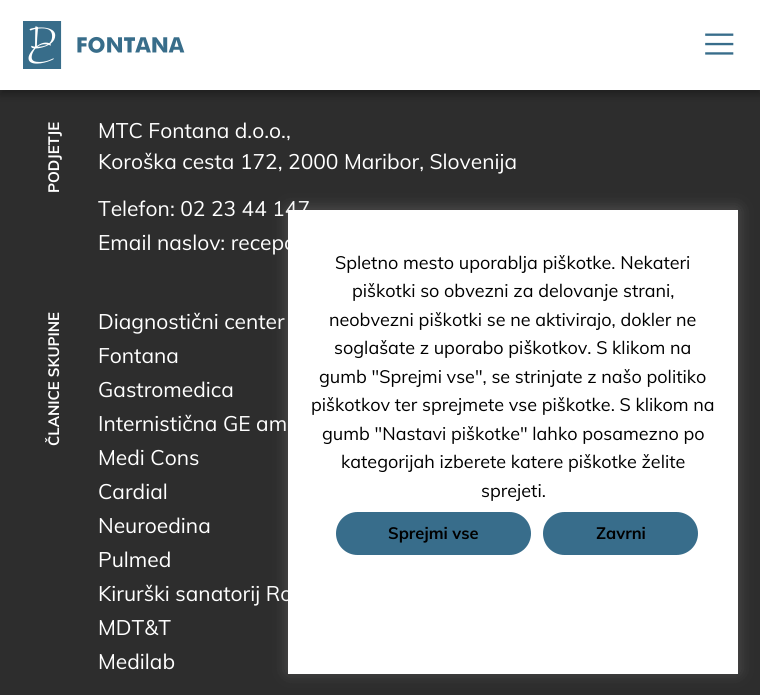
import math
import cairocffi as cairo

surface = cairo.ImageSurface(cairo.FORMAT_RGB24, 760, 695)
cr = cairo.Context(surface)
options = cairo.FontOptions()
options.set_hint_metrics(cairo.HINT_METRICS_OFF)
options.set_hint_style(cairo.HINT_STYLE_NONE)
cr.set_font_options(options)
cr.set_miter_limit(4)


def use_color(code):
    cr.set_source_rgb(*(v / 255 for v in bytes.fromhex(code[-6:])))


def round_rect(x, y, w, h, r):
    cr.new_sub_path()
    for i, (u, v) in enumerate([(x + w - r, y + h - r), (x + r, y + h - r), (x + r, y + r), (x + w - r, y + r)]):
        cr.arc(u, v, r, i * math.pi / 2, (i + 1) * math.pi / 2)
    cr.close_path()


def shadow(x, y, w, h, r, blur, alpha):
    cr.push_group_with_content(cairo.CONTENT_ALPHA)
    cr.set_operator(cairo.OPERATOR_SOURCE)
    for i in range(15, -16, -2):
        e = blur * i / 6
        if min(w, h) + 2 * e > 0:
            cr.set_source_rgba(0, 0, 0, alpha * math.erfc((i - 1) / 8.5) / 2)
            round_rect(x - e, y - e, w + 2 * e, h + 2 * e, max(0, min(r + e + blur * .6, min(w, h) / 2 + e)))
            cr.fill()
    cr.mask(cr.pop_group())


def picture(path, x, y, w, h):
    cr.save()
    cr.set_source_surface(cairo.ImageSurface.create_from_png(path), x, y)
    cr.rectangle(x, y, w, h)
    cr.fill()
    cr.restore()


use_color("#2d2d2d")
cr.paint()
use_color("#000000")
shadow(0, 5, 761, 90, 0, 4, 0.3)
use_color("#ffffff")
cr.rectangle(0, 0, 760, 90)
cr.fill()
picture("img1.png", 23, 21, 162, 48)
picture("img2.png", 705, 33, 29, 22)
cr.select_font_face("Muli", cairo.FONT_SLANT_NORMAL, cairo.FONT_WEIGHT_BOLD)
cr.set_font_size(15)
cr.save()
cr.translate(59, 193)
cr.rotate(-90 * math.pi / 180)
cr.move_to(0, 0)
cr.show_text("PODJETJE")
cr.restore()
cr.select_font_face("Muli")
cr.set_font_size(21)
cr.move_to(98, 138)
cr.show_text("MTC Fontana d.o.o.,")
cr.move_to(98, 169)
cr.show_text("Koroška cesta 172, 2000 Maribor, Slovenija")
cr.move_to(98, 216)
cr.show_text("Telefon: 02 23 44 147")
cr.move_to(98, 250)
cr.show_text("Email naslov: recepc")
cr.select_font_face("Muli", cairo.FONT_SLANT_NORMAL, cairo.FONT_WEIGHT_BOLD)
cr.set_font_size(15)
cr.save()
cr.translate(59, 446)
cr.rotate(-90 * math.pi / 180)
cr.move_to(0, 0)
cr.show_text("ČLANICE SKUPINE")
cr.restore()
cr.select_font_face("Muli")
cr.set_font_size(21)
cr.move_to(98, 329)
cr.show_text("Diagnostični center")
cr.move_to(98, 363)
cr.show_text("Fontana")
cr.move_to(98, 397)
cr.show_text("Gastromedica")
cr.move_to(98, 431)
cr.show_text("Internistična GE am")
cr.move_to(98, 465)
cr.show_text("Medi Cons")
cr.move_to(98, 499)
cr.show_text("Cardial")
cr.move_to(98, 533)
cr.show_text("Neuroedina")
cr.move_to(98, 567)
cr.show_text("Pulmed")
cr.move_to(98, 601)
cr.show_text("Kirurški sanatorij Ro")
cr.move_to(98, 635)
cr.show_text("MDT&T")
cr.move_to(98, 669)
cr.show_text("Medilab")
use_color("#acabab")
shadow(288, 209, 450, 463, 0, 7.5, 0.3)
use_color("#ffffff")
cr.rectangle(288, 210, 450, 464)
cr.fill()
cr.set_font_size(18)
use_color("#000000")
cr.move_to(335, 269)
cr.show_text("Spletno mesto uporablja piškotke. Nekateri")
cr.move_to(352, 297)
cr.show_text("piškotki so obvezni za delovanje strani,")
cr.move_to(329, 326)
cr.show_text("neobvezni piškotki se ne aktivirajo, dokler ne")
cr.move_to(334, 354)
cr.show_text("soglašate z uporabo piškotkov. S klikom na")
cr.move_to(319, 383)
cr.show_text("gumb \"Sprejmi vse\", se strinjate z našo politiko")
cr.move_to(311, 411)
cr.show_text("piškotkov ter sprejmete vse piškotke. S klikom na")
cr.move_to(322, 440)
cr.show_text("gumb \"Nastavi piškotke\" lahko posamezno po")
cr.move_to(341, 468)
cr.show_text("kategorijah izberete katere piškotke želite")
cr.move_to(481, 497)
cr.show_text("sprejeti.")
use_color("#386d8b")
round_rect(336, 512, 195, 43, 21.5)
cr.fill()
cr.select_font_face("Muli", cairo.FONT_SLANT_NORMAL, cairo.FONT_WEIGHT_BOLD)
cr.set_font_size(16.5)
use_color("#000000")
cr.move_to(388, 539)
cr.show_text("Sprejmi vse")
use_color("#386d8b")
round_rect(543, 512, 155, 43, 21.5)
cr.fill()
use_color("#000000")
cr.move_to(596, 539)
cr.show_text("Zavrni")
surface.write_to_png("result.png")
